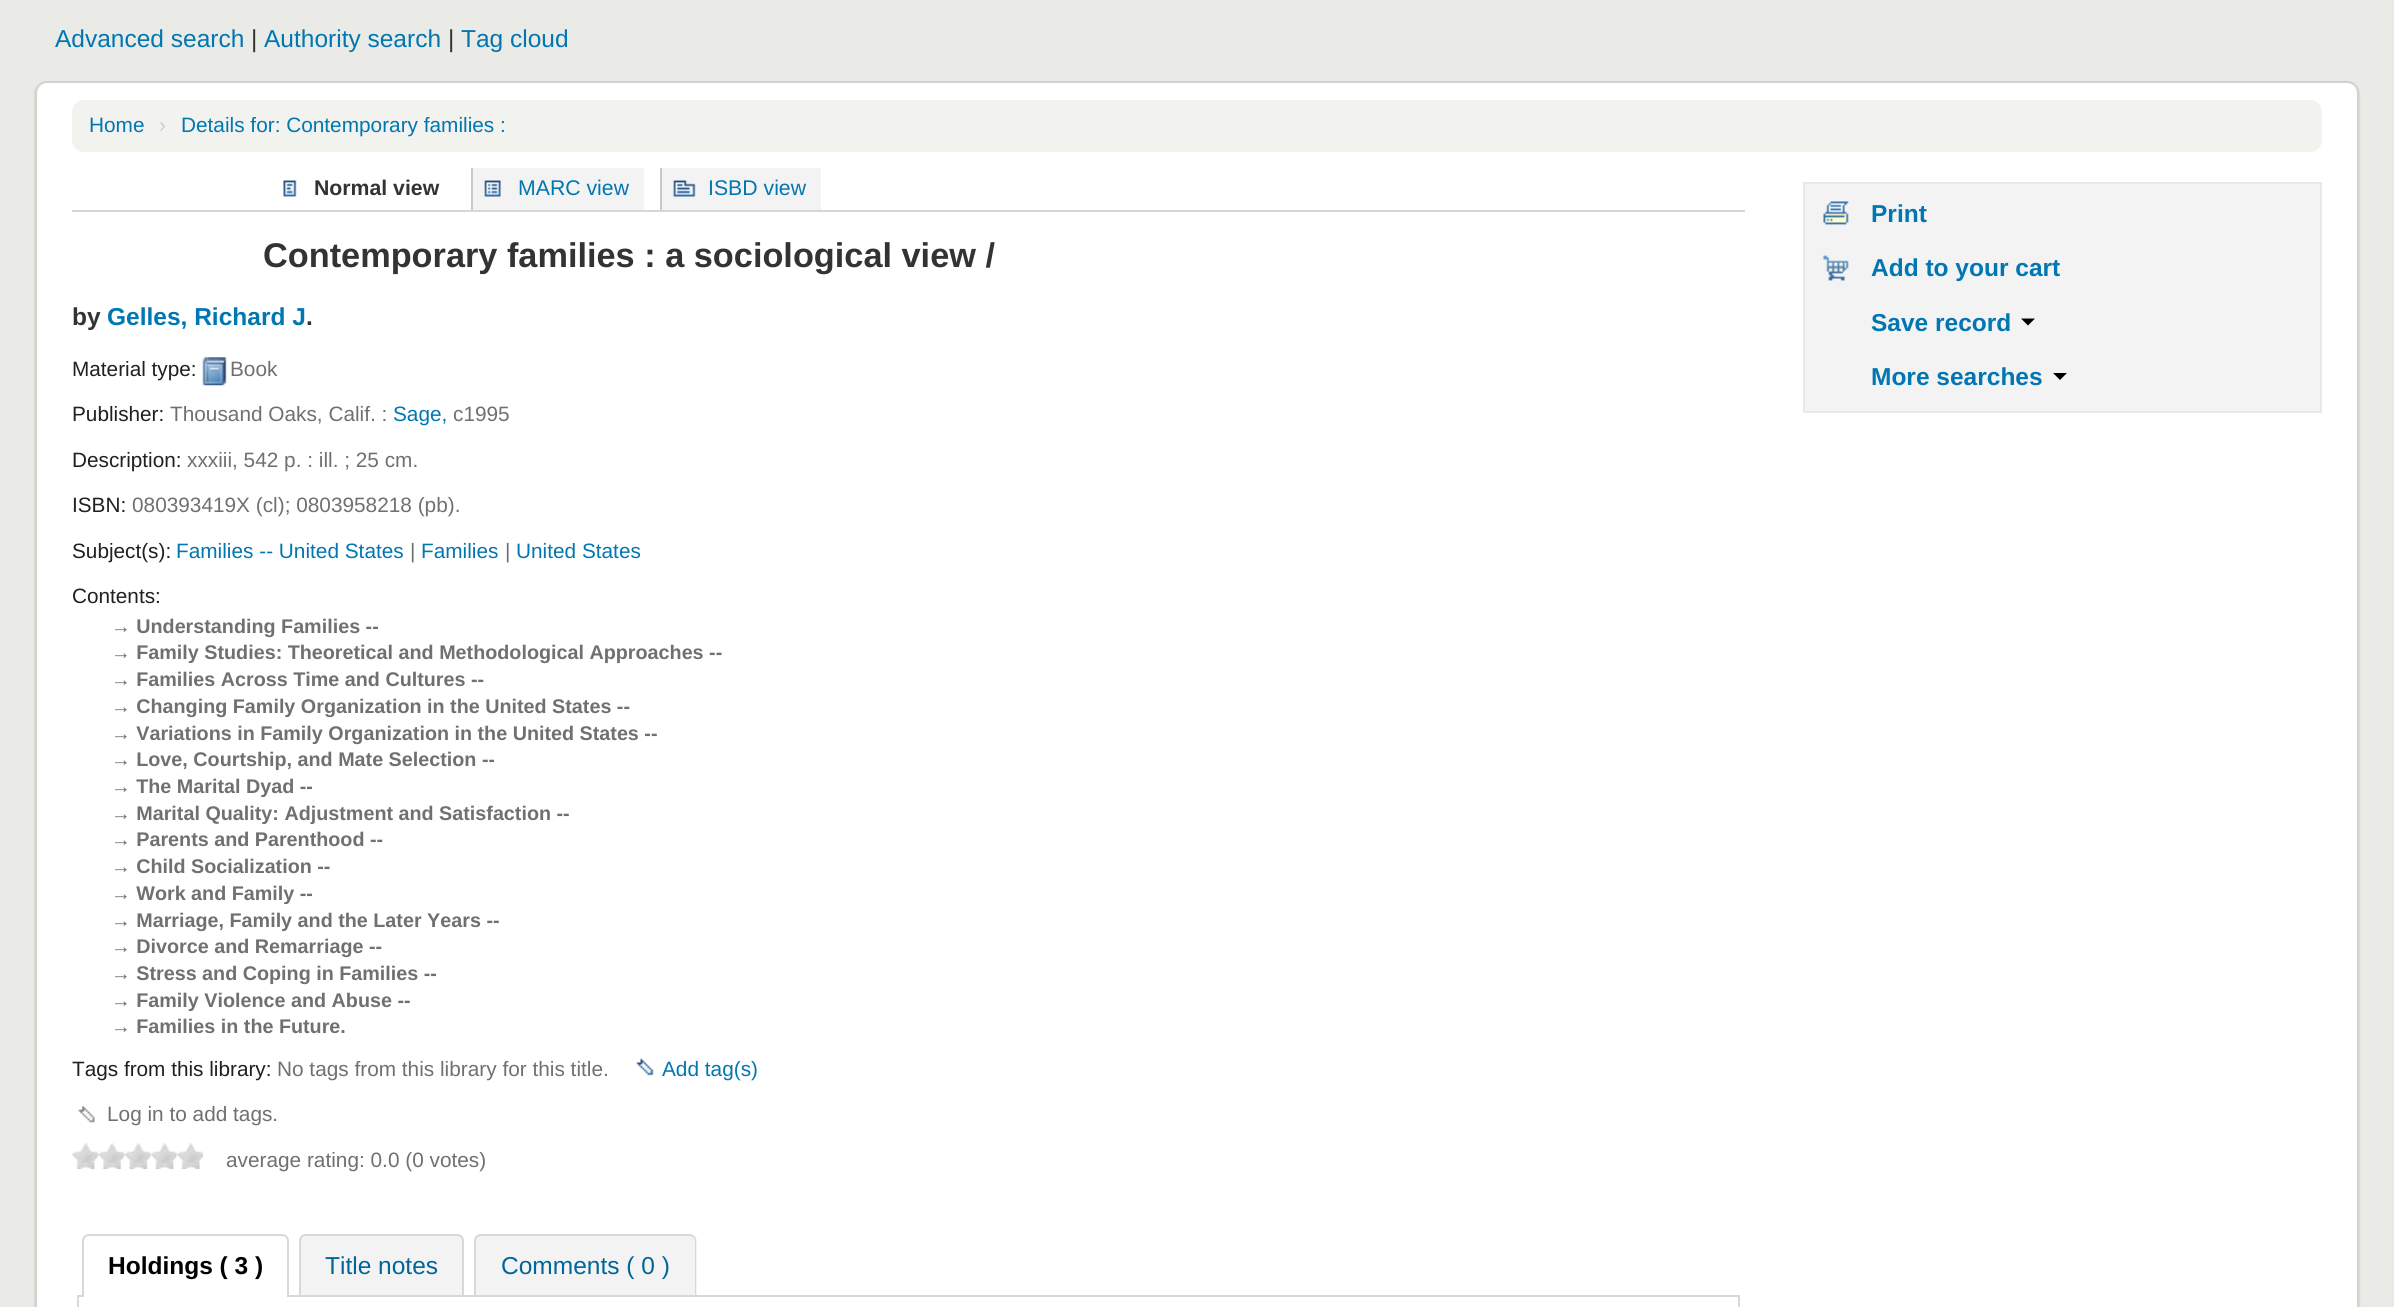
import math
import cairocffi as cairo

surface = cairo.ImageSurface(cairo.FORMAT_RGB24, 2394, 1307)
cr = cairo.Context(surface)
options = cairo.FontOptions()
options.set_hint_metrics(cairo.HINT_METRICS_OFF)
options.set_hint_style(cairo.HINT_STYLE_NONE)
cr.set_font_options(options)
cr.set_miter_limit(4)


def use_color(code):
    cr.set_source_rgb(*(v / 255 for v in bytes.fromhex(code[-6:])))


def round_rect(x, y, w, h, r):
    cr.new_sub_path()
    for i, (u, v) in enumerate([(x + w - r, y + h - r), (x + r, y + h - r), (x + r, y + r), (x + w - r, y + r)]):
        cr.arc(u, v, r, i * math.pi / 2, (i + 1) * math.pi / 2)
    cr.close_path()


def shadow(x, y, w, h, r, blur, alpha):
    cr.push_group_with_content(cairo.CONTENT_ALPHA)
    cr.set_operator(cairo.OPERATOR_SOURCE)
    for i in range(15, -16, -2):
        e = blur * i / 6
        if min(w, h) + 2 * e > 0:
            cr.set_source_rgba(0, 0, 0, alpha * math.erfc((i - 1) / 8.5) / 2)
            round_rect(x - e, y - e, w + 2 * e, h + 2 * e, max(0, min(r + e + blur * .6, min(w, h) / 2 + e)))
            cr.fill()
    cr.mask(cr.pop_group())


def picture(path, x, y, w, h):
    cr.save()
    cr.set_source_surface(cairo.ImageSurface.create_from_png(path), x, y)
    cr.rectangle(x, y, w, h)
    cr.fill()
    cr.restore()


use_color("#eaeae6")
cr.paint()
cr.select_font_face("Liberation Sans")
cr.set_font_size(24.5)
use_color("#0076b2")
cr.move_to(55, 47)
cr.show_text("Advanced search")
use_color("#333333")
cr.move_to(251, 47)
cr.show_text("|")
use_color("#0076b2")
cr.move_to(264, 47)
cr.show_text("Authority search")
use_color("#333333")
cr.move_to(448, 47)
cr.show_text("|")
use_color("#0076b2")
cr.move_to(461, 47)
cr.show_text("Tag cloud")
use_color("#000000")
shadow(35, 82, 2324, 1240, 12, 1, 0.2)
use_color("#ffffff")
round_rect(36, 82, 2322, 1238, 11)
cr.fill_preserve()
use_color("#d2d2cf")
cr.stroke()
use_color("#f2f2ef")
round_rect(72, 100, 2250, 52, 12)
cr.fill()
cr.set_font_size(20.8)
use_color("#0076b2")
cr.move_to(89, 132)
cr.show_text("Home")
use_color("#cccccc")
cr.move_to(159, 132)
cr.show_text("›")
use_color("#0076b2")
cr.move_to(181, 132)
cr.show_text("Details for: Contemporary families :")
use_color("#d6d6d6")
cr.rectangle(72, 210, 1673, 2)
cr.fill()
picture("img1.png", 283, 180, 14, 17)
cr.select_font_face("Liberation Sans", cairo.FONT_SLANT_NORMAL, cairo.FONT_WEIGHT_BOLD)
cr.set_font_size(21.25)
use_color("#333333")
cr.move_to(314, 195)
cr.show_text("Normal view")
use_color("#f3f3f3")
cr.rectangle(473, 168, 171, 42)
cr.fill()
picture("img2.png", 484, 180, 17, 17)
cr.select_font_face("Liberation Sans")
use_color("#0076b2")
cr.move_to(518, 195)
cr.show_text("MARC view")
use_color("#c9c9c9")
cr.rectangle(471, 168, 2, 42)
cr.fill()
use_color("#f3f3f3")
cr.rectangle(662, 168, 159, 42)
cr.fill()
picture("img3.png", 673, 180, 23, 17)
use_color("#0076b2")
cr.move_to(708, 195)
cr.show_text("ISBD view")
use_color("#c9c9c9")
cr.rectangle(660, 168, 2, 42)
cr.fill()
cr.select_font_face("Liberation Sans", cairo.FONT_SLANT_NORMAL, cairo.FONT_WEIGHT_BOLD)
cr.set_font_size(34.3)
use_color("#333333")
cr.move_to(263, 267)
cr.show_text("Contemporary families : a sociological view /")
cr.set_font_size(24.5)
cr.move_to(72, 325)
cr.show_text("by")
use_color("#0076b2")
cr.move_to(107, 325)
cr.show_text("Gelles, Richard J")
use_color("#333333")
cr.move_to(306, 325)
cr.show_text(".")
cr.select_font_face("Liberation Sans")
cr.set_font_size(20.75)
use_color("#202020")
cr.move_to(72, 376)
cr.show_text("Material type:")
picture("img4.png", 202, 357, 25, 29)
cr.set_font_size(20.8)
use_color("#707070")
cr.move_to(230, 376)
cr.show_text("Book")
cr.set_font_size(20.75)
use_color("#202020")
cr.move_to(72, 421)
cr.show_text("Publisher:")
cr.set_font_size(20.8)
use_color("#707070")
cr.move_to(170, 421)
cr.show_text("Thousand Oaks, Calif. :")
use_color("#0076b2")
cr.move_to(393, 421)
cr.show_text("Sage,")
use_color("#707070")
cr.move_to(453, 421)
cr.show_text("c1995")
cr.set_font_size(20.75)
use_color("#202020")
cr.move_to(72, 467)
cr.show_text("Description:")
cr.set_font_size(20.8)
use_color("#707070")
cr.move_to(187, 467)
cr.show_text("xxxiii, 542 p. : ill. ; 25 cm.")
cr.set_font_size(20.75)
use_color("#202020")
cr.move_to(72, 512)
cr.show_text("ISBN:")
cr.set_font_size(20.8)
use_color("#707070")
cr.move_to(132, 512)
cr.show_text("080393419X (cl); 0803958218 (pb).")
cr.set_font_size(20.75)
use_color("#202020")
cr.move_to(72, 558)
cr.show_text("Subject(s):")
cr.set_font_size(20.8)
use_color("#0076b2")
cr.move_to(176, 558)
cr.show_text("Families -- United States")
use_color("#707070")
cr.move_to(410, 558)
cr.show_text("|")
use_color("#0076b2")
cr.move_to(421, 558)
cr.show_text("Families")
use_color("#707070")
cr.move_to(505, 558)
cr.show_text("|")
use_color("#0076b2")
cr.move_to(516, 558)
cr.show_text("United States")
cr.set_font_size(20.75)
use_color("#202020")
cr.move_to(72, 603)
cr.show_text("Contents:")
cr.select_font_face("Liberation Sans", cairo.FONT_SLANT_NORMAL, cairo.FONT_WEIGHT_BOLD)
cr.set_font_size(19.75)
use_color("#707070")
cr.move_to(111, 633)
cr.show_text("→ Understanding Families --")
cr.move_to(111, 659)
cr.show_text("→ Family Studies: Theoretical and Methodological Approaches --")
cr.move_to(111, 686)
cr.show_text("→ Families Across Time and Cultures --")
cr.move_to(111, 713)
cr.show_text("→ Changing Family Organization in the United States --")
cr.move_to(111, 740)
cr.show_text("→ Variations in Family Organization in the United States --")
cr.move_to(111, 766)
cr.show_text("→ Love, Courtship, and Mate Selection --")
cr.move_to(111, 793)
cr.show_text("→ The Marital Dyad --")
cr.move_to(111, 820)
cr.show_text("→ Marital Quality: Adjustment and Satisfaction --")
cr.move_to(111, 846)
cr.show_text("→ Parents and Parenthood --")
cr.move_to(111, 873)
cr.show_text("→ Child Socialization --")
cr.move_to(111, 900)
cr.show_text("→ Work and Family --")
cr.move_to(111, 927)
cr.show_text("→ Marriage, Family and the Later Years --")
cr.move_to(111, 953)
cr.show_text("→ Divorce and Remarriage --")
cr.move_to(111, 980)
cr.show_text("→ Stress and Coping in Families --")
cr.move_to(111, 1007)
cr.show_text("→ Family Violence and Abuse --")
cr.move_to(111, 1033)
cr.show_text("→ Families in the Future.")
cr.select_font_face("Liberation Sans")
cr.set_font_size(20.75)
use_color("#202020")
cr.move_to(72, 1076)
cr.show_text("Tags from this library:")
cr.set_font_size(20.8)
use_color("#707070")
cr.move_to(277, 1076)
cr.show_text("No tags from this library for this title.")
picture("img5.png", 636, 1058, 18, 18)
use_color("#0076b2")
cr.move_to(662, 1076)
cr.show_text("Add tag(s)")
picture("img6.png", 78, 1105, 17, 18)
use_color("#707070")
cr.move_to(107, 1121)
cr.show_text("Log in to add tags.")
picture("img7.png", 72, 1143, 26, 26)
picture("img8.png", 98, 1143, 27, 26)
picture("img9.png", 124, 1143, 27, 26)
picture("img10.png", 151, 1143, 26, 26)
picture("img11.png", 177, 1143, 26, 26)
cr.move_to(226, 1167)
cr.show_text("average rating: 0.0 (0 votes)")
cr.rectangle(78, 1296, 1661, 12)
use_color("#d8d8d8")
cr.stroke()
use_color("#ffffff")
cr.new_path()
cr.move_to(89, 1234)
cr.line_to(282, 1234)
cr.curve_to(286, 1234, 289, 1237, 289, 1241)
cr.line_to(289, 1297)
cr.line_to(82, 1297)
cr.line_to(82, 1241)
cr.curve_to(82, 1237, 85, 1234, 89, 1234)
cr.close_path()
cr.fill()
use_color("#d8d8d8")
cr.set_fill_rule(cairo.FILL_RULE_EVEN_ODD)
cr.new_path()
cr.move_to(89, 1234)
cr.line_to(282, 1234)
cr.curve_to(286, 1234, 289, 1237, 289, 1241)
cr.line_to(289, 1297)
cr.line_to(82, 1297)
cr.line_to(82, 1241)
cr.curve_to(82, 1237, 85, 1234, 89, 1234)
cr.close_path()
cr.move_to(89, 1236)
cr.line_to(282, 1236)
cr.curve_to(285, 1236, 287, 1238, 287, 1241)
cr.line_to(287, 1297)
cr.line_to(84, 1297)
cr.line_to(84, 1241)
cr.curve_to(84, 1238, 86, 1236, 89, 1236)
cr.close_path()
cr.fill()
cr.select_font_face("Liberation Sans", cairo.FONT_SLANT_NORMAL, cairo.FONT_WEIGHT_BOLD)
cr.set_font_size(24.5)
use_color("#000000")
cr.move_to(108, 1274)
cr.show_text("Holdings ( 3 )")
use_color("#f3f3f3")
cr.new_path()
cr.move_to(306, 1234)
cr.line_to(457, 1234)
cr.curve_to(461, 1234, 464, 1237, 464, 1241)
cr.line_to(464, 1295)
cr.line_to(299, 1295)
cr.line_to(299, 1241)
cr.curve_to(299, 1237, 302, 1234, 306, 1234)
cr.close_path()
cr.fill()
use_color("#d8d8d8")
cr.new_path()
cr.move_to(306, 1234)
cr.line_to(457, 1234)
cr.curve_to(461, 1234, 464, 1237, 464, 1241)
cr.line_to(464, 1295)
cr.line_to(299, 1295)
cr.line_to(299, 1241)
cr.curve_to(299, 1237, 302, 1234, 306, 1234)
cr.close_path()
cr.move_to(306, 1236)
cr.line_to(457, 1236)
cr.curve_to(460, 1236, 462, 1238, 462, 1241)
cr.line_to(462, 1295)
cr.line_to(301, 1295)
cr.line_to(301, 1241)
cr.curve_to(301, 1238, 303, 1236, 306, 1236)
cr.close_path()
cr.fill()
cr.select_font_face("Liberation Sans")
use_color("#006699")
cr.move_to(325, 1274)
cr.show_text("Title notes")
use_color("#f3f3f3")
cr.new_path()
cr.move_to(481, 1234)
cr.line_to(690, 1234)
cr.curve_to(694, 1234, 697, 1237, 697, 1241)
cr.line_to(697, 1295)
cr.line_to(474, 1295)
cr.line_to(474, 1241)
cr.curve_to(474, 1237, 477, 1234, 481, 1234)
cr.close_path()
cr.fill()
use_color("#d8d8d8")
cr.new_path()
cr.move_to(481, 1234)
cr.line_to(690, 1234)
cr.curve_to(693, 1234, 696, 1237, 696, 1241)
cr.line_to(696, 1295)
cr.line_to(474, 1295)
cr.line_to(474, 1241)
cr.curve_to(474, 1237, 477, 1234, 481, 1234)
cr.close_path()
cr.move_to(481, 1236)
cr.line_to(690, 1236)
cr.curve_to(692, 1236, 695, 1238, 695, 1241)
cr.line_to(695, 1295)
cr.line_to(476, 1295)
cr.line_to(476, 1241)
cr.curve_to(476, 1238, 478, 1236, 481, 1236)
cr.close_path()
cr.fill()
use_color("#006699")
cr.move_to(501, 1274)
cr.show_text("Comments ( 0 )")
use_color("#f3f3f3")
cr.rectangle(1804, 183, 517, 229)
cr.fill_preserve()
use_color("#e8e8e8")
cr.stroke()
picture("img12.png", 1823, 201, 26, 24)
cr.select_font_face("Liberation Sans", cairo.FONT_SLANT_NORMAL, cairo.FONT_WEIGHT_BOLD)
use_color("#0076b2")
cr.move_to(1871, 222)
cr.show_text("Print")
picture("img13.png", 1823, 255, 26, 26)
cr.move_to(1871, 276)
cr.show_text("Add to your cart")
cr.move_to(1871, 331)
cr.show_text("Save record")
use_color("#000000")
cr.set_fill_rule(cairo.FILL_RULE_WINDING)
cr.new_path()
cr.move_to(2021, 318.5)
cr.line_to(2035, 318.5)
cr.line_to(2028, 325.5)
cr.close_path()
cr.fill()
use_color("#0076b2")
cr.move_to(1871, 385)
cr.show_text("More searches")
use_color("#000000")
cr.new_path()
cr.move_to(2053, 373)
cr.line_to(2067, 373)
cr.line_to(2060, 380)
cr.close_path()
cr.fill()
surface.write_to_png("result.png")
